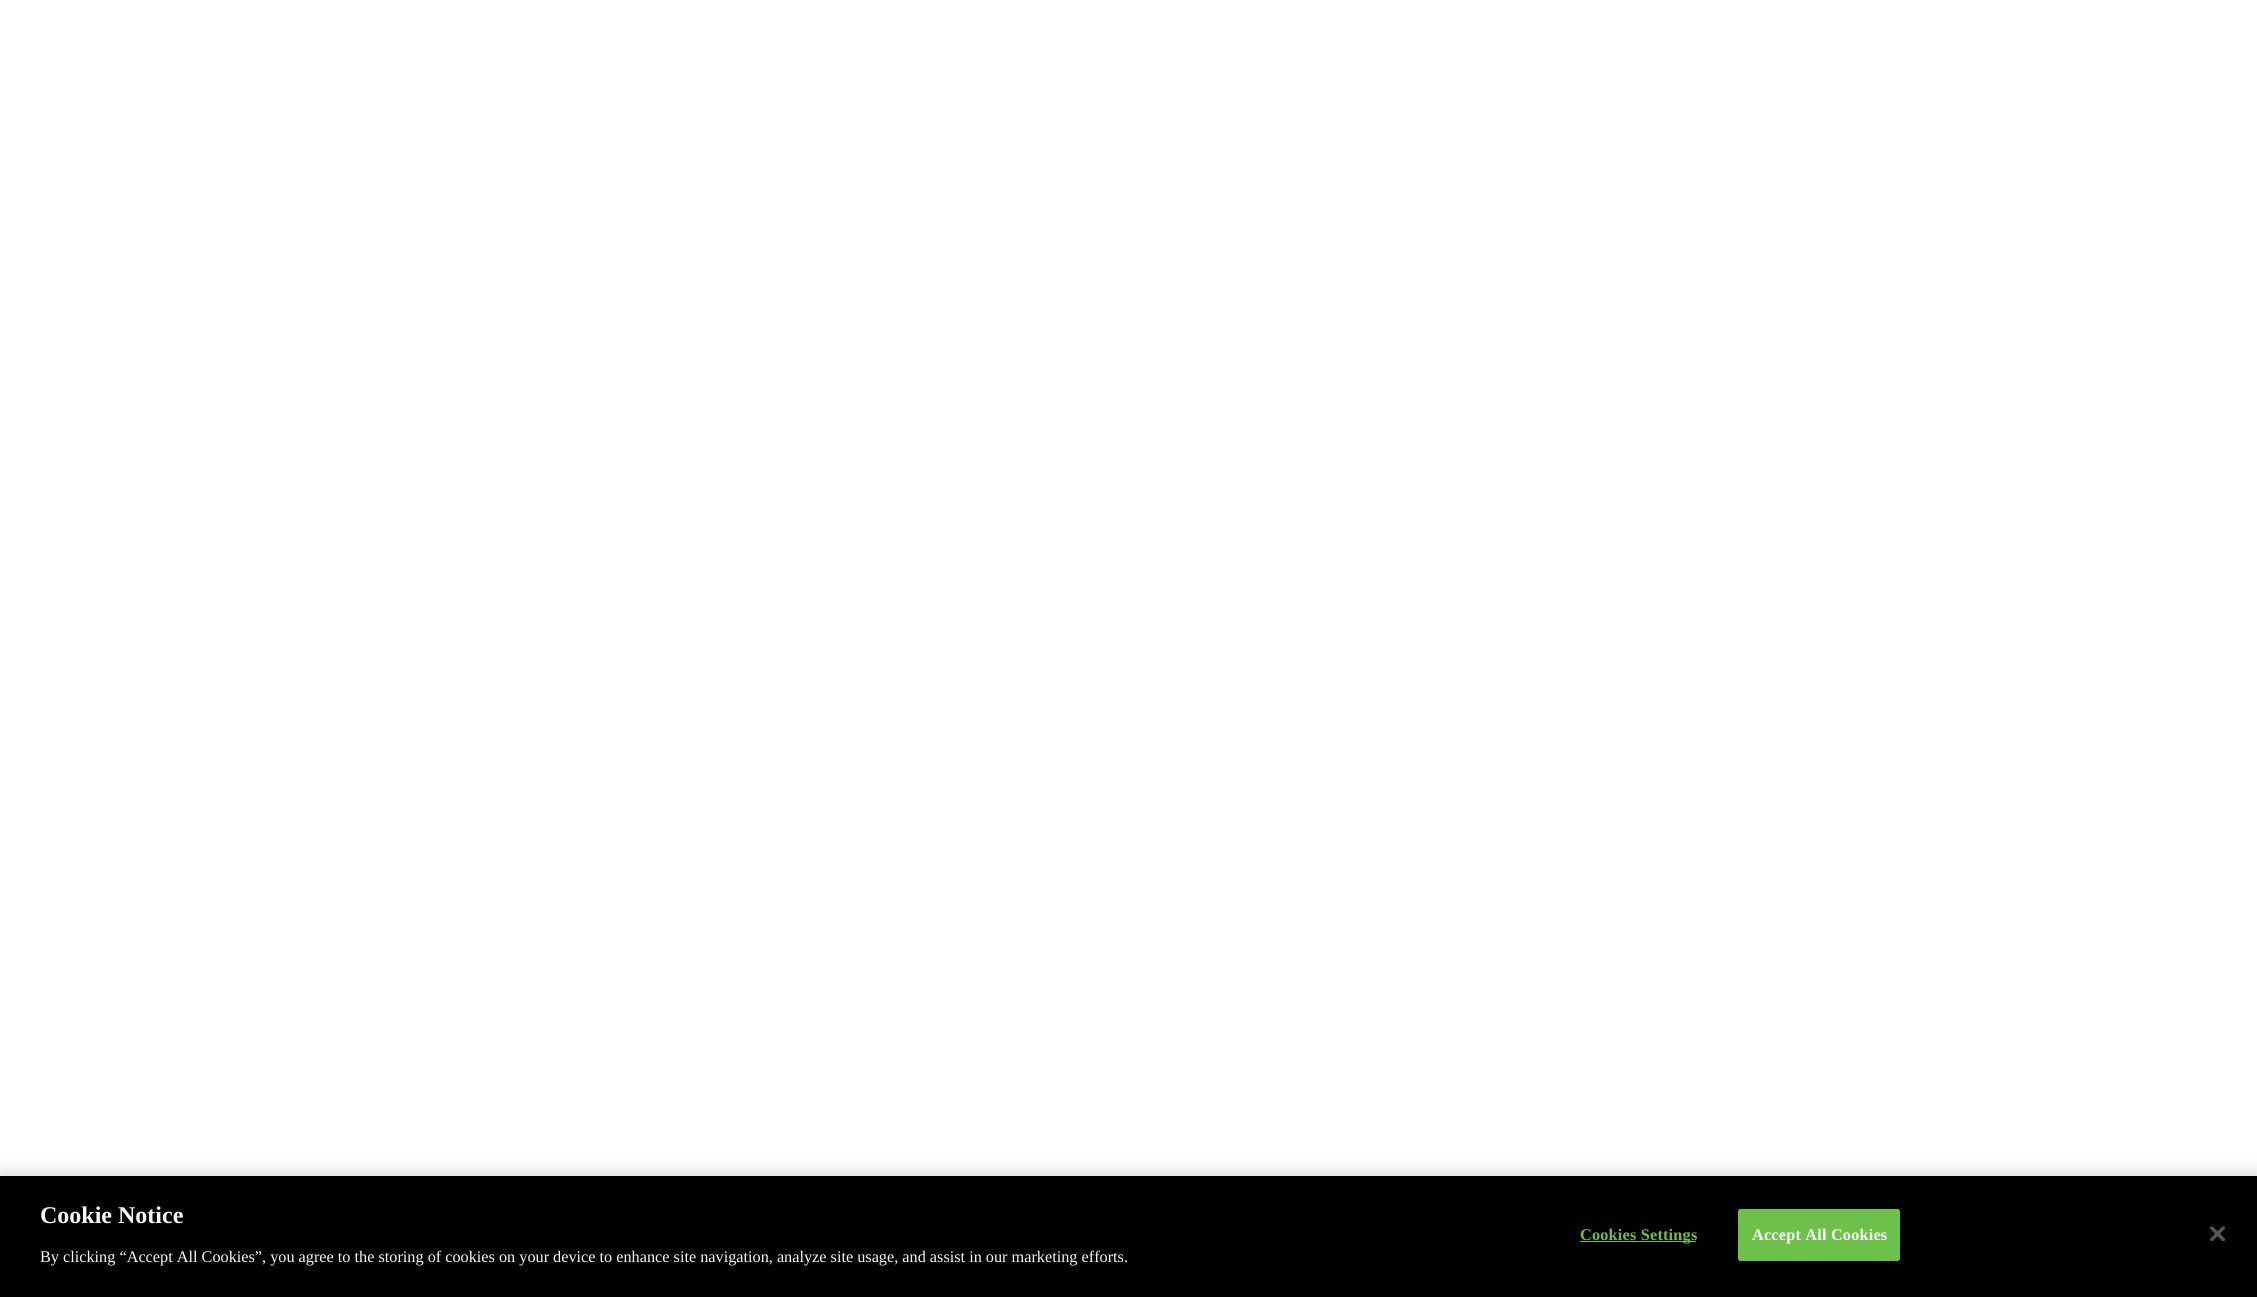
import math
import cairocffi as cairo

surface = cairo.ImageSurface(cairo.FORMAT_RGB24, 2257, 1297)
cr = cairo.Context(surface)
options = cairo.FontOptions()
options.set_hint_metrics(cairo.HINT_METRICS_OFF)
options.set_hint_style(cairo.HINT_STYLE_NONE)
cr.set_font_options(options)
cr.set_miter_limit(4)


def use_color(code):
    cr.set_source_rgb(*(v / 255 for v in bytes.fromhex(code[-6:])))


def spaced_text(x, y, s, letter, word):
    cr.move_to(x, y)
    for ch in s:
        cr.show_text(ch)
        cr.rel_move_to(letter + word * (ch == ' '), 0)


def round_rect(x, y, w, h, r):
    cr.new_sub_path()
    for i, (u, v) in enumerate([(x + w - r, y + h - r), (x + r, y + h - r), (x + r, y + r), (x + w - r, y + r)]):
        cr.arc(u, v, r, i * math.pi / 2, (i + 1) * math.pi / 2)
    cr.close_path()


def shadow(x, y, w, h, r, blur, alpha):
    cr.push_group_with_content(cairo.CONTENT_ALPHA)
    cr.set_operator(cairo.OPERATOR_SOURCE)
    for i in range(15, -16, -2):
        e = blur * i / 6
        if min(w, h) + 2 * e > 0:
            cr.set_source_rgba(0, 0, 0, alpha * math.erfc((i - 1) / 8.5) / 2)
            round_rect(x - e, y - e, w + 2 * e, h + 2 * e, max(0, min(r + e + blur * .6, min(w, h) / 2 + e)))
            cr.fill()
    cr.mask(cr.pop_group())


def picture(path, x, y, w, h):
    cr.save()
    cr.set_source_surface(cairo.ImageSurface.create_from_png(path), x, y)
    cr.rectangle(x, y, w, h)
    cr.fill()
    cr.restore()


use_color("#ffffff")
cr.paint()
use_color("#000000")
shadow(0, 1176, 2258, 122, 0, 11, 0.2)
use_color("#000000")
cr.rectangle(0, 1176, 2257, 121)
cr.fill()
cr.select_font_face("Liberation Serif", cairo.FONT_SLANT_NORMAL, cairo.FONT_WEIGHT_BOLD)
cr.set_font_size(24)
use_color("#f8f8f8")
cr.move_to(40, 1223)
cr.show_text("Cookie Notice")
cr.select_font_face("Liberation Serif")
cr.set_font_size(16.25)
cr.move_to(40, 1262)
cr.show_text("By clicking “Accept All Cookies”, you agree to the storing of cookies on your device to enhance site navigation, analyze site usage, and assist in our marketing efforts.")
use_color("#6cc04a")
cr.rectangle(1580, 1241, 116, 1)
cr.fill()
cr.select_font_face("Liberation Serif", cairo.FONT_SLANT_NORMAL, cairo.FONT_WEIGHT_BOLD)
spaced_text(1580, 1240, "Cookies Settings", 0.2, 0)
use_color("#6dc04a")
round_rect(1738.5, 1209.5, 161, 51, 2)
cr.fill_preserve()
cr.set_line_width(1)
cr.stroke()
use_color("#ffffff")
spaced_text(1752, 1240, "Accept All Cookies", 0.2, 0)
picture("img1.png", 2210, 1226, 15, 15)
surface.write_to_png("result.png")
